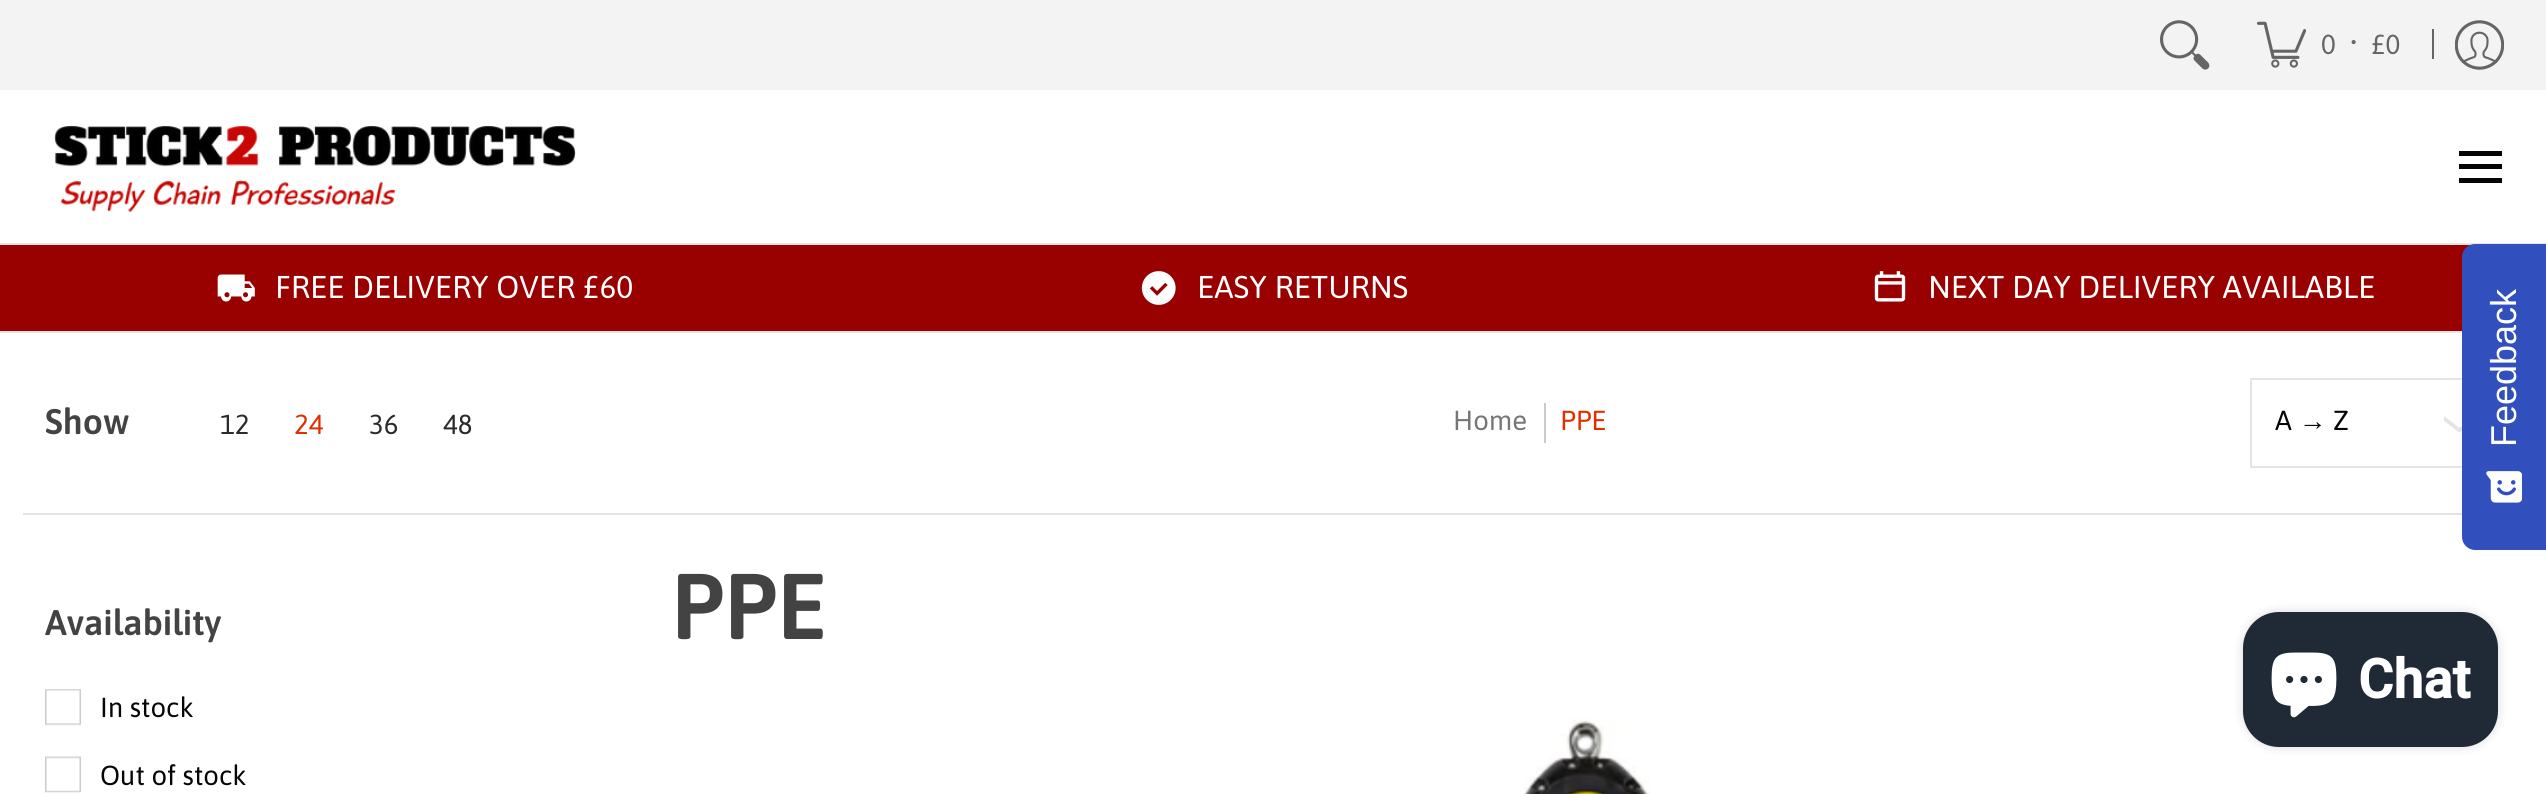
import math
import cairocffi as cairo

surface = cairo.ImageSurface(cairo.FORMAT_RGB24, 2546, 794)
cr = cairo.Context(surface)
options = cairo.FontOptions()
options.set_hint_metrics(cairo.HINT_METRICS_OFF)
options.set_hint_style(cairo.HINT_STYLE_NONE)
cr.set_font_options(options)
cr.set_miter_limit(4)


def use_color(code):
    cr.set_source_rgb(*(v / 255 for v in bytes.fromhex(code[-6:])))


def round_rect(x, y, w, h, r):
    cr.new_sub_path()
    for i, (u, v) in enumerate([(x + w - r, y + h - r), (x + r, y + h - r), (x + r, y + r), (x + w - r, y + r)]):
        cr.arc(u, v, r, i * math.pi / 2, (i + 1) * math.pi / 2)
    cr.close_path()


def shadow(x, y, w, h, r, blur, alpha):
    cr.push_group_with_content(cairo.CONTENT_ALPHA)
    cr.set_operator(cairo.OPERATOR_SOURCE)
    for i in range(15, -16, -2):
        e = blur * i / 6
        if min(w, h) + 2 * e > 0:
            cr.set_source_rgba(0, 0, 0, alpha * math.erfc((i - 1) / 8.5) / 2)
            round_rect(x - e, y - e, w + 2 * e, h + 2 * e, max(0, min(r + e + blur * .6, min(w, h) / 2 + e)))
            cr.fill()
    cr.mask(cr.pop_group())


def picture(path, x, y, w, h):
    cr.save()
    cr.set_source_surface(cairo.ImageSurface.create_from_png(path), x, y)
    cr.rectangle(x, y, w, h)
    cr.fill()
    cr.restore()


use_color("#ffffff")
cr.paint()
use_color("#f3f3f3")
cr.rectangle(0, 0, 2546, 90)
cr.fill()
picture("img1.png", 2160, 20, 50, 50)
picture("img2.png", 2257, 21, 49, 47)
cr.select_font_face("Asap")
cr.set_font_size(27.5)
use_color("#656565")
cr.move_to(2321, 54)
cr.show_text("0")
cr.move_to(2349, 52)
cr.show_text("•")
cr.move_to(2371, 54)
cr.show_text("£0")
cr.rectangle(2432, 29, 2, 30)
cr.fill()
picture("img3.png", 2455, 20, 49, 50)
use_color("#e4e4e4")
cr.rectangle(0, 243, 2546, 2)
cr.fill()
picture("img4.png", 54, 125, 522, 88)
use_color("#050505")
cr.rectangle(2459, 151, 43, 5)
cr.fill()
cr.rectangle(2459, 178, 43, 5)
cr.fill()
cr.rectangle(2459, 164, 43, 5)
cr.fill()
use_color("#e4e4e4")
cr.rectangle(0, 331, 2462, 2)
cr.fill()
use_color("#990000")
cr.rectangle(0, 245, 2470, 86)
cr.fill()
picture("img5.png", 217, 274, 38, 28)
cr.set_font_size(31.5)
use_color("#ffffff")
cr.move_to(275, 298)
cr.show_text("FREE DELIVERY OVER £60")
picture("img6.png", 1141, 271, 35, 34)
cr.move_to(1197, 298)
cr.show_text("EASY RETURNS")
picture("img7.png", 1874, 271, 32, 31)
cr.move_to(1928, 298)
cr.show_text("NEXT DAY DELIVERY AVAILABLE")
cr.rectangle(2251, 379, 250, 88)
use_color("#e4e4e4")
cr.stroke()
cr.save()
cr.rectangle(2444, 407, 31, 32)
cr.clip()
cr.new_path()
cr.move_to(2444, 418.5)
cr.line_to(2459, 430)
cr.curve_to(2459, 430, 2459.5, 430, 2460, 430)
cr.line_to(2474.5, 418.5)
cr.set_line_width(3.9)
cr.set_line_cap(cairo.LINE_CAP_ROUND)
cr.set_line_join(cairo.LINE_JOIN_ROUND)
cr.stroke()
cr.restore()
use_color("#324fbe")
cr.new_path()
cr.move_to(2462, 537)
cr.line_to(2462, 257)
cr.curve_to(2462, 250, 2468, 244, 2475, 244)
cr.line_to(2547, 244)
cr.line_to(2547, 550)
cr.line_to(2475, 550)
cr.curve_to(2468, 550, 2462, 544, 2462, 537)
cr.close_path()
cr.fill()
cr.select_font_face("Liberation Sans")
cr.set_font_size(36)
use_color("#ffffff")
cr.save()
cr.translate(2516, 447)
cr.rotate(-90 * math.pi / 180)
cr.move_to(0, 0)
cr.show_text("Feedback")
cr.restore()
picture("img8.png", 2486, 471, 36, 32)
use_color("#e4e4e4")
cr.rectangle(23, 513, 2439, 2)
cr.fill()
cr.select_font_face("Asap SemiBold")
cr.set_font_size(35.5)
use_color("#434343")
cr.move_to(45, 434)
cr.show_text("Show")
cr.select_font_face("Asap")
cr.set_font_size(27.5)
use_color("#2b2b2b")
cr.move_to(220, 434)
cr.show_text("12")
use_color("#e32e00")
cr.move_to(294, 434)
cr.show_text("24")
use_color("#2b2b2b")
cr.move_to(369, 434)
cr.show_text("36")
cr.move_to(443, 434)
cr.show_text("48")
use_color("#767676")
cr.move_to(1453, 430)
cr.show_text("Home")
use_color("#cbcbcb")
cr.rectangle(1544, 403, 2, 40)
cr.fill()
use_color("#e32e00")
cr.move_to(1560, 430)
cr.show_text("PPE")
use_color("#050505")
cr.move_to(2275, 430)
cr.show_text("A")
cr.select_font_face("Liberation Sans")
cr.move_to(2299, 430)
cr.show_text("→")
cr.select_font_face("Asap")
cr.move_to(2333, 430)
cr.show_text("Z")
cr.select_font_face("Asap SemiBold")
cr.set_font_size(35.5)
use_color("#434343")
cr.move_to(45, 635)
cr.show_text("Availability")
picture("img9.png", 45, 689, 36, 37)
cr.select_font_face("Asap")
cr.set_font_size(27.5)
use_color("#050505")
cr.move_to(100, 717)
cr.show_text("In stock")
picture("img10.png", 45, 756, 36, 37)
cr.move_to(100, 785)
cr.show_text("Out of stock")
cr.select_font_face("Asap SemiBold")
cr.set_font_size(93)
use_color("#434343")
cr.move_to(671, 639)
cr.show_text("PPE")
picture("img11.png", 1523, 719, 127, 75)
use_color("#000000")
shadow(2243, 612, 255, 135, 36, 5.5, 0.15)
use_color("#202a36")
round_rect(2243, 612, 255, 135, 36)
cr.fill()
picture("img12.png", 2271, 652, 66, 66)
cr.select_font_face("Roboto", cairo.FONT_SLANT_NORMAL, cairo.FONT_WEIGHT_BOLD)
cr.set_font_size(54)
use_color("#ffffff")
cr.move_to(2358, 698)
cr.show_text("Chat")
surface.write_to_png("result.png")
